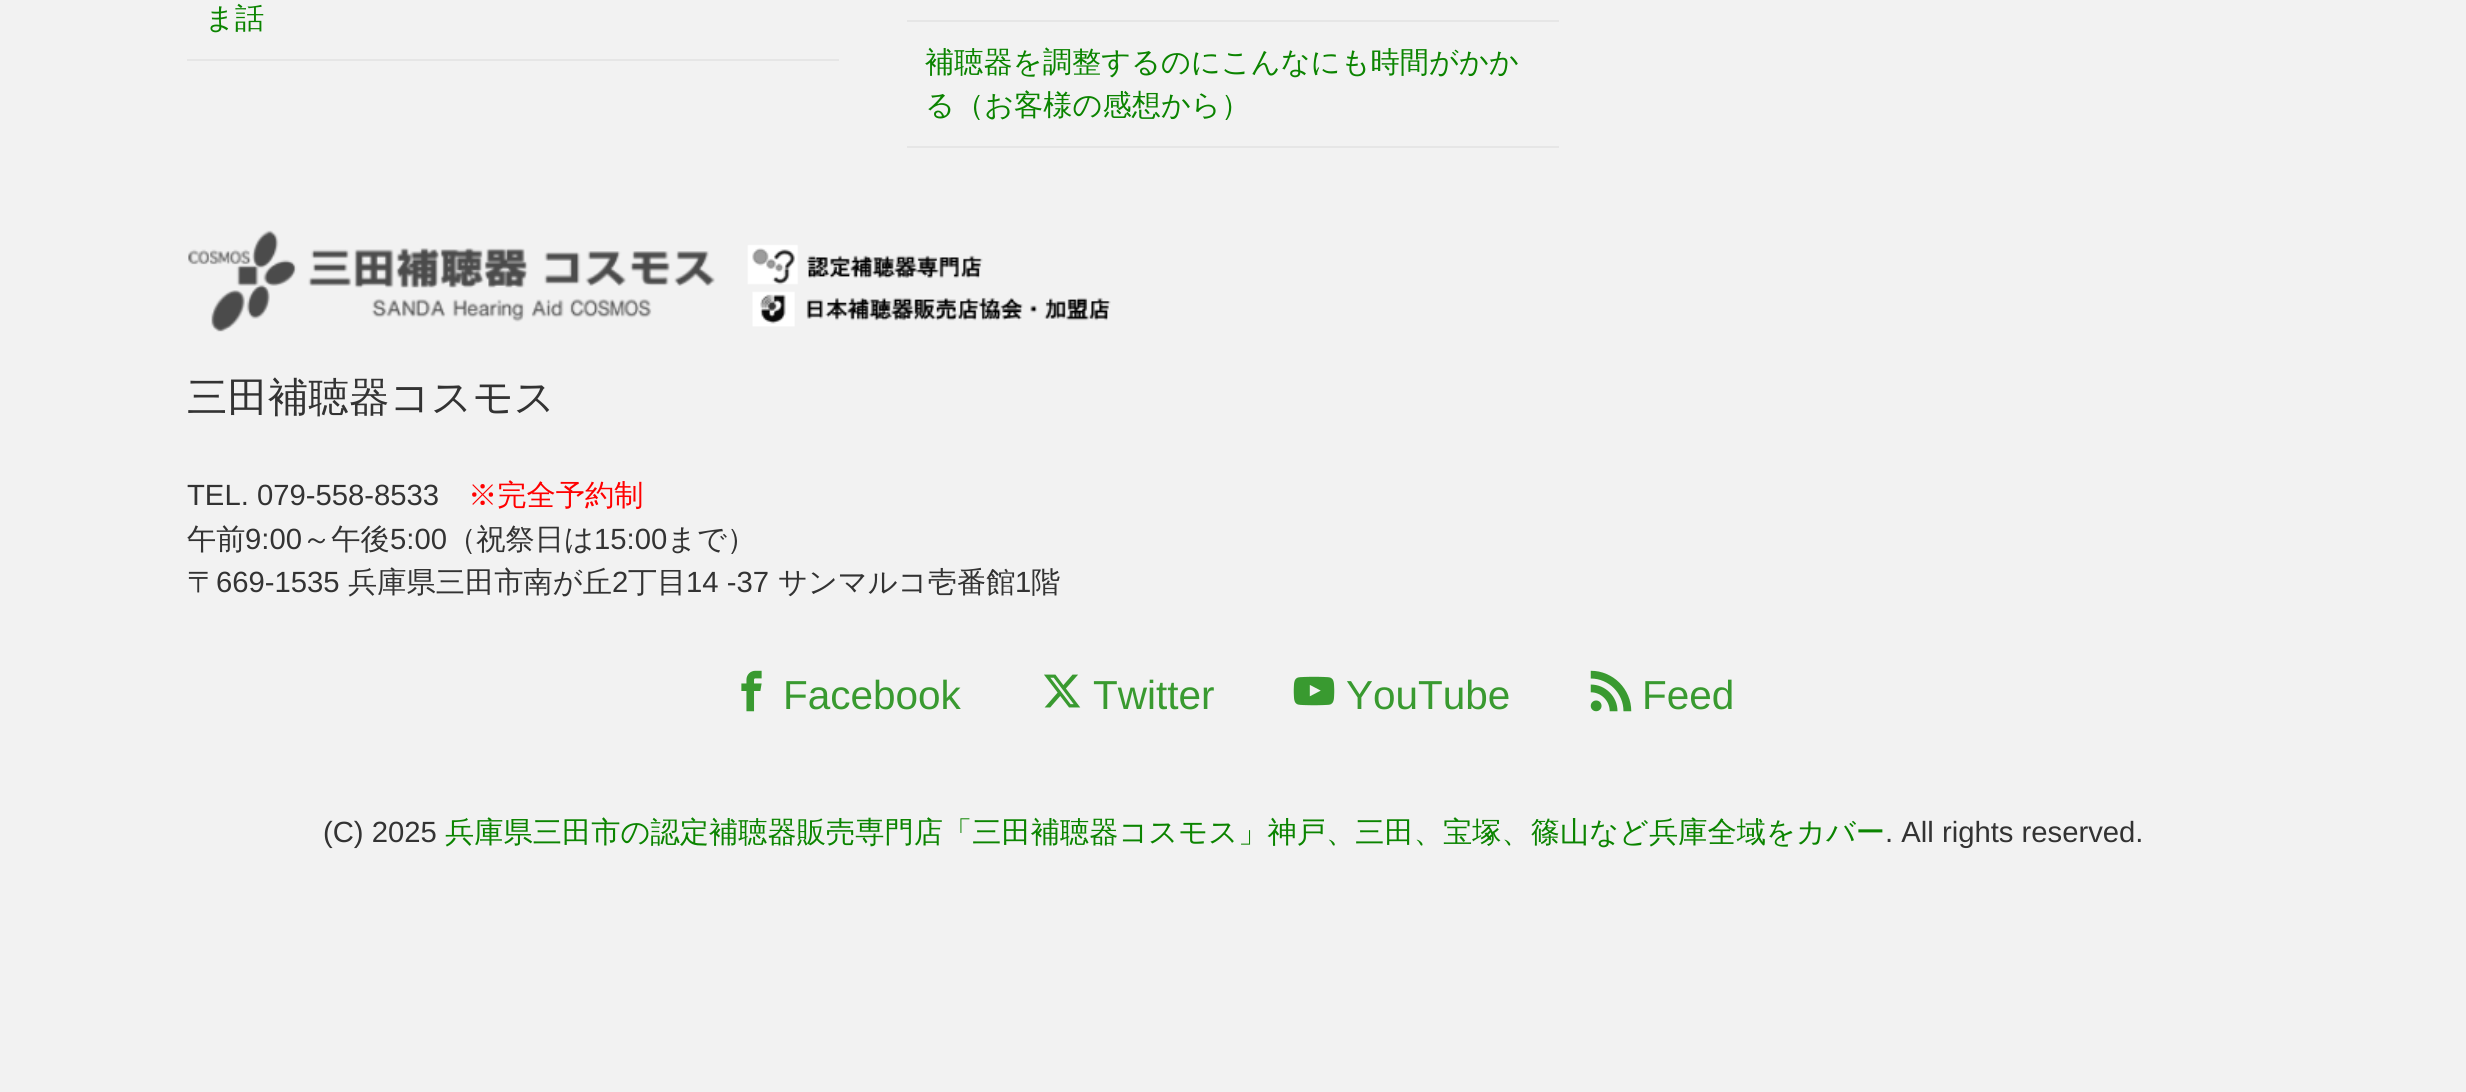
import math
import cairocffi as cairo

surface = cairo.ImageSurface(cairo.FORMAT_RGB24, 2466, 1092)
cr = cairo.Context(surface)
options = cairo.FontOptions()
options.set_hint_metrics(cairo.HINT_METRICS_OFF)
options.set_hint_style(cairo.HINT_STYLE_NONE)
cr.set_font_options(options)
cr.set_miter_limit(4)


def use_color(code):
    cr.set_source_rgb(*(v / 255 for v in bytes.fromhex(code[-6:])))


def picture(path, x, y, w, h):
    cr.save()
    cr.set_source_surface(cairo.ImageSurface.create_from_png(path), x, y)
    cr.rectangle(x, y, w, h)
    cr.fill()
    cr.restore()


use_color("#f2f2f2")
cr.paint()
use_color("#e6e6e6")
cr.rectangle(187, 59, 652, 2)
cr.fill()
cr.select_font_face("WenQuanYi Zen Hei Medium")
cr.set_font_size(29.25)
use_color("#0b8400")
cr.move_to(205, 28)
cr.show_text("ま話")
use_color("#e6e6e6")
cr.rectangle(907, 20, 652, 2)
cr.fill()
cr.rectangle(907, 146, 652, 2)
cr.fill()
use_color("#0b8400")
cr.move_to(925, 72)
cr.show_text("補聴器を調整するのにこんなにも時間がかか")
cr.move_to(925, 115)
cr.show_text("る（お客様の感想から）")
picture("img1.png", 188, 230, 923, 102)
cr.set_font_size(40.5)
use_color("#333333")
cr.move_to(187, 411)
cr.show_text("三田補聴器コスモス")
cr.select_font_face("Liberation Sans")
cr.set_font_size(29.25)
cr.move_to(187, 505)
cr.show_text("TEL. 079-558-8533")
cr.select_font_face("WenQuanYi Zen Hei Medium")
use_color("#ff0000")
cr.move_to(468, 505)
cr.show_text("※完全予約制")
use_color("#333333")
cr.move_to(187, 549)
cr.show_text("午前")
cr.select_font_face("Liberation Sans")
cr.move_to(245, 549)
cr.show_text("9:00")
cr.select_font_face("WenQuanYi Zen Hei Medium")
cr.move_to(302, 549)
cr.show_text("～午後")
cr.select_font_face("Liberation Sans")
cr.move_to(390, 549)
cr.show_text("5:00")
cr.select_font_face("WenQuanYi Zen Hei Medium")
cr.move_to(447, 549)
cr.show_text("（祝祭日は")
cr.select_font_face("Liberation Sans")
cr.move_to(594, 549)
cr.show_text("15:00")
cr.select_font_face("WenQuanYi Zen Hei Medium")
cr.move_to(667, 549)
cr.show_text("まで）")
cr.move_to(187, 592)
cr.show_text("〒")
cr.select_font_face("Liberation Sans")
cr.move_to(216, 592)
cr.show_text("669-1535")
cr.select_font_face("WenQuanYi Zen Hei Medium")
cr.move_to(348, 592)
cr.show_text("兵庫県三田市南が丘")
cr.select_font_face("Liberation Sans")
cr.move_to(612, 592)
cr.show_text("2")
cr.select_font_face("WenQuanYi Zen Hei Medium")
cr.move_to(628, 592)
cr.show_text("丁目")
cr.select_font_face("Liberation Sans")
cr.move_to(686, 592)
cr.show_text("14 -37")
cr.select_font_face("WenQuanYi Zen Hei Medium")
cr.move_to(778, 592)
cr.show_text("サンマルコ壱番館")
cr.select_font_face("Liberation Sans")
cr.move_to(1015, 592)
cr.show_text("1")
cr.select_font_face("WenQuanYi Zen Hei Medium")
cr.move_to(1031, 592)
cr.show_text("階")
picture("img2.png", 741, 670, 21, 42)
cr.select_font_face("Liberation Sans")
cr.set_font_size(40.5)
use_color("#399a30")
cr.move_to(783, 709)
cr.show_text("Facebook")
picture("img3.png", 1044, 674, 37, 34)
cr.move_to(1093, 709)
cr.show_text("Twitter")
picture("img4.png", 1293, 676, 42, 30)
cr.move_to(1346, 709)
cr.show_text("YouTube")
picture("img5.png", 1590, 670, 42, 42)
cr.move_to(1642, 709)
cr.show_text("Feed")
cr.set_font_size(29.25)
use_color("#333333")
cr.move_to(323, 842)
cr.show_text("(C) 2025")
cr.select_font_face("WenQuanYi Zen Hei Medium")
use_color("#0b8400")
cr.move_to(445, 842)
cr.show_text("兵庫県三田市の認定補聴器販売専門店「三田補聴器コスモス」神戸、三田、宝塚、篠山など兵庫全域をカバー")
cr.select_font_face("Liberation Sans")
use_color("#333333")
cr.move_to(1885, 842)
cr.show_text(". All rights reserved.")
surface.write_to_png("result.png")
